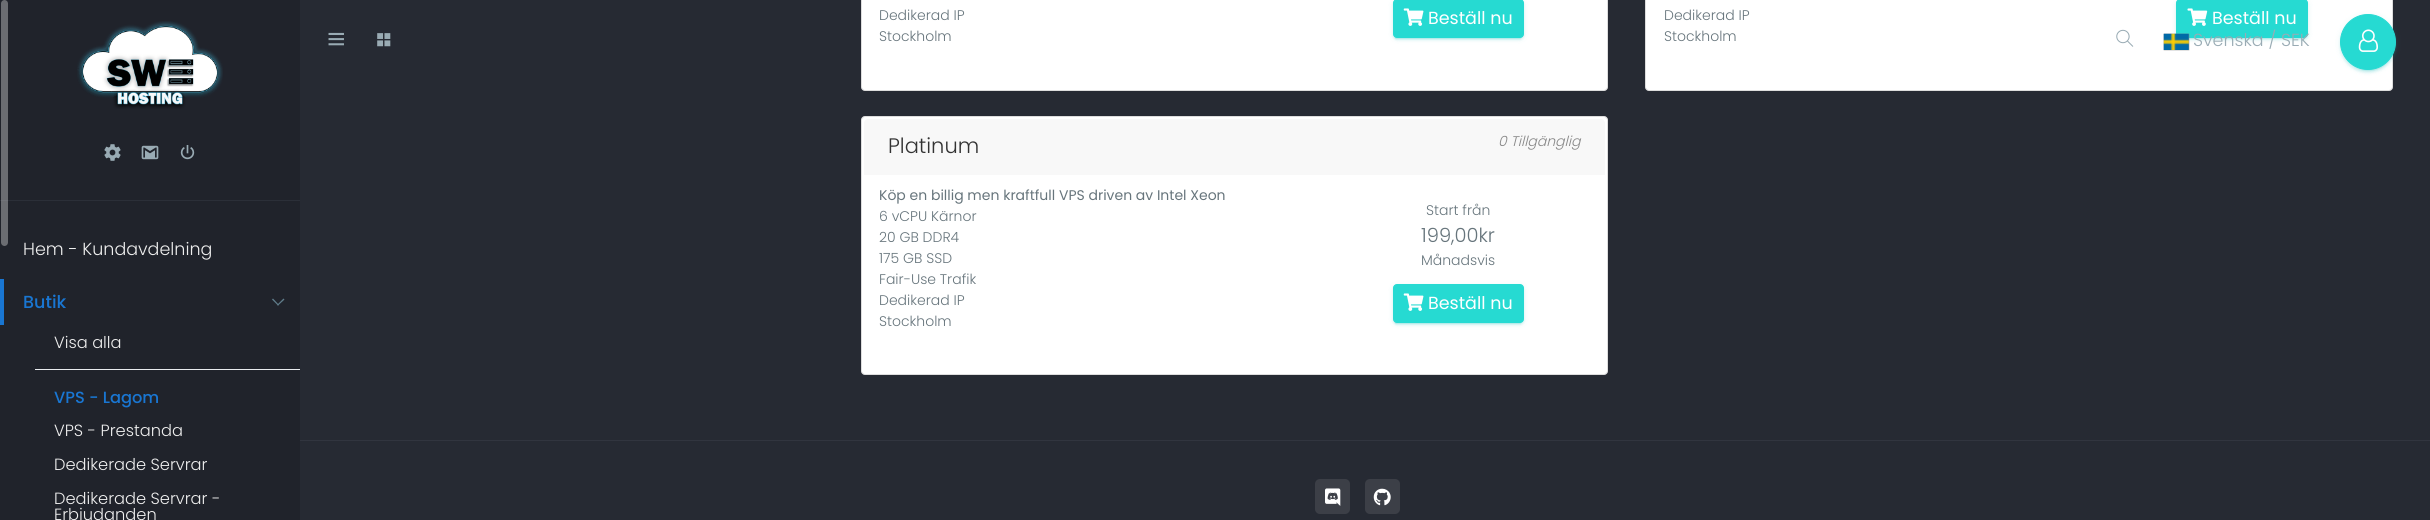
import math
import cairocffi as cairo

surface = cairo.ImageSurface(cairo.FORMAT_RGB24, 2430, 520)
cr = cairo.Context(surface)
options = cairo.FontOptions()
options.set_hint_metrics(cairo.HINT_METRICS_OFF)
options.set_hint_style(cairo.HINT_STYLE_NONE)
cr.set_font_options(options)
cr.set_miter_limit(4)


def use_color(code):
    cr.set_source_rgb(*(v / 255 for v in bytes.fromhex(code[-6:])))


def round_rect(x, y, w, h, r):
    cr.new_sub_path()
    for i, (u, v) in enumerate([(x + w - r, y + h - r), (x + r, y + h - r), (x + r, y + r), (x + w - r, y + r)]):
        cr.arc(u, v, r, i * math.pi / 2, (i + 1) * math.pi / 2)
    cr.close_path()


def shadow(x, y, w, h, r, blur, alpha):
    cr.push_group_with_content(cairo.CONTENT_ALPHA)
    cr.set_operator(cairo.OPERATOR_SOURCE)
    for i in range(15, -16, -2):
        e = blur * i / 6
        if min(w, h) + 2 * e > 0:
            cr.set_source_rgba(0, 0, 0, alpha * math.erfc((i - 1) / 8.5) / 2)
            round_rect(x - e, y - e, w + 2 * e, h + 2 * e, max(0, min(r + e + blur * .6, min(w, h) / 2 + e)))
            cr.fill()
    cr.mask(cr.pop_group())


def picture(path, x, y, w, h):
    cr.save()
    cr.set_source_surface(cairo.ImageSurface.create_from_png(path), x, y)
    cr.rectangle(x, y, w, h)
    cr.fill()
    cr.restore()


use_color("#262a33")
cr.paint()
use_color("#ffffff")
round_rect(861.5, -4.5, 746, 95, 3.5)
cr.fill_preserve()
use_color("#dddddd")
cr.set_line_width(1)
cr.stroke()
cr.select_font_face("Poppins Light")
cr.set_font_size(14)
use_color("#67757c")
cr.move_to(879, 20)
cr.show_text("Dedikerad IP")
cr.move_to(879, 41)
cr.show_text("Stockholm")
use_color("#28bebd")
shadow(1393, 0, 131, 39, 4, 3, 0.12)
shadow(1395, 5, 126, 34, 1, 0.5, 0.2)
shadow(1393, 1, 131, 39, 4, 1, 0.14)
use_color("#26dad2")
round_rect(1393.5, -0.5, 130, 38, 3.5)
cr.fill_preserve()
cr.stroke()
picture("img1.png", 1403, 8, 21, 18)
cr.select_font_face("Poppins")
cr.set_font_size(17.5)
use_color("#ffffff")
cr.move_to(1428, 24)
cr.show_text("Beställ nu")
round_rect(1645.5, -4.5, 747, 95, 3.5)
cr.fill_preserve()
use_color("#dddddd")
cr.stroke()
cr.select_font_face("Poppins Light")
cr.set_font_size(14)
use_color("#67757c")
cr.move_to(1664, 20)
cr.show_text("Dedikerad IP")
cr.move_to(1664, 41)
cr.show_text("Stockholm")
use_color("#28bebd")
shadow(2176, 0, 132, 39, 4, 3, 0.12)
shadow(2179, 5, 126, 34, 1, 0.5, 0.2)
shadow(2176, 1, 132, 39, 4, 1, 0.14)
use_color("#26dad2")
round_rect(2176.5, -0.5, 131, 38, 3.5)
cr.fill_preserve()
cr.stroke()
picture("img2.png", 2187, 8, 21, 18)
cr.select_font_face("Poppins")
cr.set_font_size(17.5)
use_color("#ffffff")
cr.move_to(2212, 24)
cr.show_text("Beställ nu")
round_rect(861.5, 116.5, 746, 258, 3.5)
cr.fill_preserve()
use_color("#dddddd")
cr.stroke()
use_color("#f8f8f8")
cr.new_path()
cr.move_to(868, 119)
cr.line_to(1601, 119)
cr.curve_to(1603, 119, 1605, 121, 1605, 123)
cr.line_to(1605, 175)
cr.line_to(864, 175)
cr.line_to(864, 123)
cr.curve_to(864, 121, 866, 119, 868, 119)
cr.close_path()
cr.fill()
cr.select_font_face("Poppins Light")
cr.set_font_size(21)
use_color("#333333")
cr.move_to(888, 153)
cr.show_text("Platinum")
cr.select_font_face("Poppins Light", cairo.FONT_SLANT_ITALIC)
cr.set_font_size(14)
use_color("#888888")
cr.move_to(1498, 146)
cr.show_text("0 Tillgänglig")
cr.select_font_face("Poppins")
use_color("#67757c")
cr.move_to(879, 200)
cr.show_text("Köp en billig men kraftfull VPS driven av Intel Xeon")
cr.select_font_face("Poppins Light")
cr.move_to(879, 221)
cr.show_text("6 vCPU Kärnor")
cr.move_to(879, 242)
cr.show_text("20 GB DDR4")
cr.move_to(879, 263)
cr.show_text("175 GB SSD")
cr.move_to(879, 284)
cr.show_text("Fair-Use Trafik")
cr.move_to(879, 305)
cr.show_text("Dedikerad IP")
cr.move_to(879, 326)
cr.show_text("Stockholm")
cr.move_to(1426, 215)
cr.show_text("Start från")
cr.set_font_size(19.5)
cr.move_to(1421, 242)
cr.show_text("199,00kr")
cr.set_font_size(14)
cr.move_to(1421, 265)
cr.show_text("Månadsvis")
use_color("#28bebd")
shadow(1393, 285, 131, 39, 4, 3, 0.12)
shadow(1395, 290, 126, 34, 1, 0.5, 0.2)
shadow(1393, 286, 131, 39, 4, 1, 0.14)
use_color("#26dad2")
round_rect(1393.5, 284.5, 130, 38, 3.5)
cr.fill_preserve()
cr.stroke()
picture("img1.png", 1403, 293, 21, 18)
cr.select_font_face("Poppins")
cr.set_font_size(17.5)
use_color("#ffffff")
cr.move_to(1428, 309)
cr.show_text("Beställ nu")
use_color("#31353f")
cr.rectangle(300, 440, 2130, 1)
cr.fill()
use_color("#3c3f47")
round_rect(1315, 479, 35, 35, 5)
cr.fill()
picture("img3.png", 1325, 488, 16, 18)
round_rect(1365, 479, 35, 35, 5)
cr.fill()
picture("img4.png", 1373, 488, 18, 18)
picture("img5.png", 328, 32, 16, 14)
picture("img6.png", 377, 33, 14, 14)
picture("img7.png", 2116, 29, 18, 18)
use_color("#888888")
shadow(2164, 34, 25, 16, 0, 0.5, 1)
picture("img8.png", 2163, 33, 26, 17)
cr.select_font_face("Poppins Light")
use_color("#99abb4")
cr.move_to(2193, 46)
cr.show_text("Svenska / SEK")
use_color("#28bebd")
shadow(2340, 15, 56, 56, 28, 3, 0.12)
shadow(2343, 20, 51, 51, 25.5, 0.5, 0.2)
shadow(2340, 16, 56, 57, 28, 1, 0.14)
use_color("#26dad2")
cr.arc(2368, 42, 27.5, 0, 2 * math.pi)
cr.fill_preserve()
cr.stroke()
picture("img9.png", 2358, 29, 20, 23)
use_color("#20232b")
cr.rectangle(0, 0, 300, 520)
cr.fill()
use_color("#2b2f38")
cr.rectangle(0, 200, 300, 1)
cr.fill()
cr.set_source_rgba(0.863, 0.863, 0.863, 0.4)
round_rect(1, 0, 7, 246, 3.5)
cr.fill()
picture("img10.png", 77, 21, 146, 88)
picture("img11.png", 104, 144, 17, 17)
picture("img12.png", 141, 145, 18, 15)
picture("img13.png", 180, 145, 15, 15)
use_color("#eeeeee")
cr.move_to(23, 255)
cr.show_text("Hem - Kundavdelning")
use_color("#1976d2")
cr.rectangle(0, 279, 4, 46)
cr.fill()
cr.select_font_face("Poppins Medium")
cr.move_to(23, 308)
cr.show_text("Butik")
use_color("#607d8b")
cr.new_path()
cr.move_to(278, 305.5)
cr.line_to(272, 299.5)
cr.line_to(273, 298.5)
cr.line_to(279, 305)
cr.close_path()
cr.fill()
cr.new_path()
cr.move_to(278, 305.5)
cr.line_to(277, 305)
cr.line_to(283.5, 298.5)
cr.line_to(284.5, 299.5)
cr.close_path()
cr.fill()
cr.select_font_face("Poppins Light")
cr.set_font_size(16.25)
use_color("#eeeeee")
cr.move_to(54, 348)
cr.show_text("Visa alla")
use_color("#e9ecef")
cr.rectangle(35, 369, 265, 1)
cr.fill()
cr.select_font_face("Poppins Medium")
use_color("#1976d2")
cr.move_to(54, 403)
cr.show_text("VPS - Lagom")
cr.select_font_face("Poppins Light")
use_color("#eeeeee")
cr.move_to(54, 436)
cr.show_text("VPS - Prestanda")
cr.move_to(54, 470)
cr.show_text("Dedikerade Servrar")
cr.move_to(54, 504)
cr.show_text("Dedikerade Servrar -")
cr.move_to(54, 520)
cr.show_text("Erbjudanden")
surface.write_to_png("result.png")
